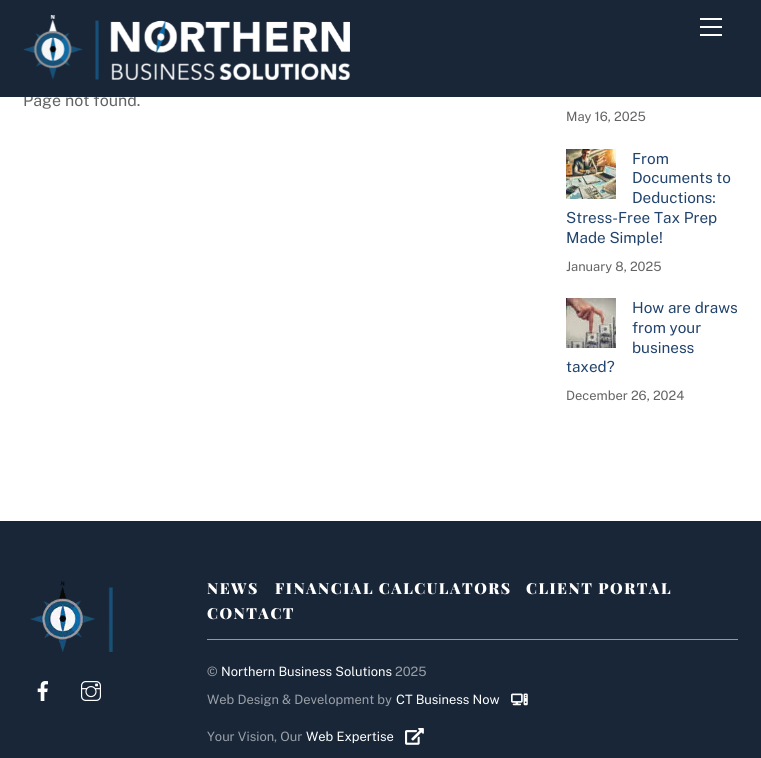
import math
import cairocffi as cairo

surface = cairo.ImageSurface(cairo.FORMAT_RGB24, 761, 758)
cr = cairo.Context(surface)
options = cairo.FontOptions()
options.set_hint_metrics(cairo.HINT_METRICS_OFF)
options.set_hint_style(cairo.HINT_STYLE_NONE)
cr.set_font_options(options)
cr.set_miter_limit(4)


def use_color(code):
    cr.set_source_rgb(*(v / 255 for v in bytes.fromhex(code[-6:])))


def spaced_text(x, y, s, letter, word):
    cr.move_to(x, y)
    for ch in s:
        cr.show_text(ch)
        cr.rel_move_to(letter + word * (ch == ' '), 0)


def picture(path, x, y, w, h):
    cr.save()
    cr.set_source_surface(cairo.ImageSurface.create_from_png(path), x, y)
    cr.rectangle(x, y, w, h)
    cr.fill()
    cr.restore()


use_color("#ffffff")
cr.paint()
cr.select_font_face("Public Sans")
cr.set_font_size(16)
use_color("#636363")
cr.move_to(23, 106)
cr.show_text("Page not found.")
use_color("#182638")
cr.rectangle(0, 0, 761, 97)
cr.fill()
picture("img1.png", 23, 15, 327, 65)
use_color("#ffffff")
cr.rectangle(700, 34, 22, 2)
cr.fill()
cr.rectangle(700, 18, 22, 2)
cr.fill()
cr.rectangle(700, 26, 22, 2)
cr.fill()
cr.set_font_size(12.9)
use_color("#636363")
cr.move_to(566, 121)
cr.show_text("May 16, 2025")
picture("img2.png", 566, 149, 50, 50)
cr.set_font_size(15.25)
use_color("#22436c")
cr.move_to(632, 164)
cr.show_text("From")
cr.move_to(632, 183)
cr.show_text("Documents to")
cr.move_to(632, 203)
cr.show_text("Deductions:")
cr.move_to(566, 223)
cr.show_text("Stress-Free Tax Prep")
cr.move_to(566, 243)
cr.show_text("Made Simple!")
cr.set_font_size(12.9)
use_color("#636363")
cr.move_to(566, 271)
cr.show_text("January 8, 2025")
picture("img3.png", 566, 298, 50, 50)
cr.set_font_size(15.25)
use_color("#22436c")
cr.move_to(632, 313)
cr.show_text("How are draws")
cr.move_to(632, 333)
cr.show_text("from your")
cr.move_to(632, 353)
cr.show_text("business")
cr.move_to(566, 372)
cr.show_text("taxed?")
cr.set_font_size(12.9)
use_color("#636363")
cr.move_to(566, 400)
cr.show_text("December 26, 2024")
use_color("#182638")
cr.rectangle(0, 522, 761, 236)
cr.fill()
use_color("#172435")
cr.rectangle(0, 521, 761, 1)
cr.fill()
picture("img4.png", 30, 581, 83, 71)
picture("img5.png", 37, 681, 11, 20)
picture("img6.png", 81, 681, 20, 20)
cr.select_font_face("Playfair Display Black")
cr.set_font_size(15.25)
use_color("#ffffff")
spaced_text(207, 594, "NEWS", 1.5, 0)
spaced_text(275, 594, "FINANCIAL CALCULATORS", 1.5, 0)
spaced_text(526, 594, "CLIENT PORTAL", 1.5, 0)
spaced_text(207, 619, "CONTACT", 1.5, 0)
use_color("#c4943a")
cr.rectangle(207, 639, 531, 1)
cr.fill()
cr.select_font_face("Public Sans")
cr.set_font_size(12.9)
use_color("#9aa0a7")
cr.move_to(207, 676)
cr.show_text("©")
use_color("#ffffff")
cr.move_to(221, 676)
cr.show_text("Northern Business Solutions")
use_color("#9aa0a7")
cr.move_to(395, 676)
cr.show_text("2025")
cr.move_to(207, 704)
cr.show_text("Web Design & Development by")
use_color("#ffffff")
cr.move_to(396, 704)
cr.show_text("CT Business Now")
picture("img7.png", 511, 693, 17, 13)
use_color("#9aa0a7")
cr.move_to(207, 741)
cr.show_text("Your Vision, Our")
use_color("#ffffff")
cr.move_to(306, 741)
cr.show_text("Web Expertise")
picture("img8.png", 405, 728, 19, 17)
surface.write_to_png("result.png")
